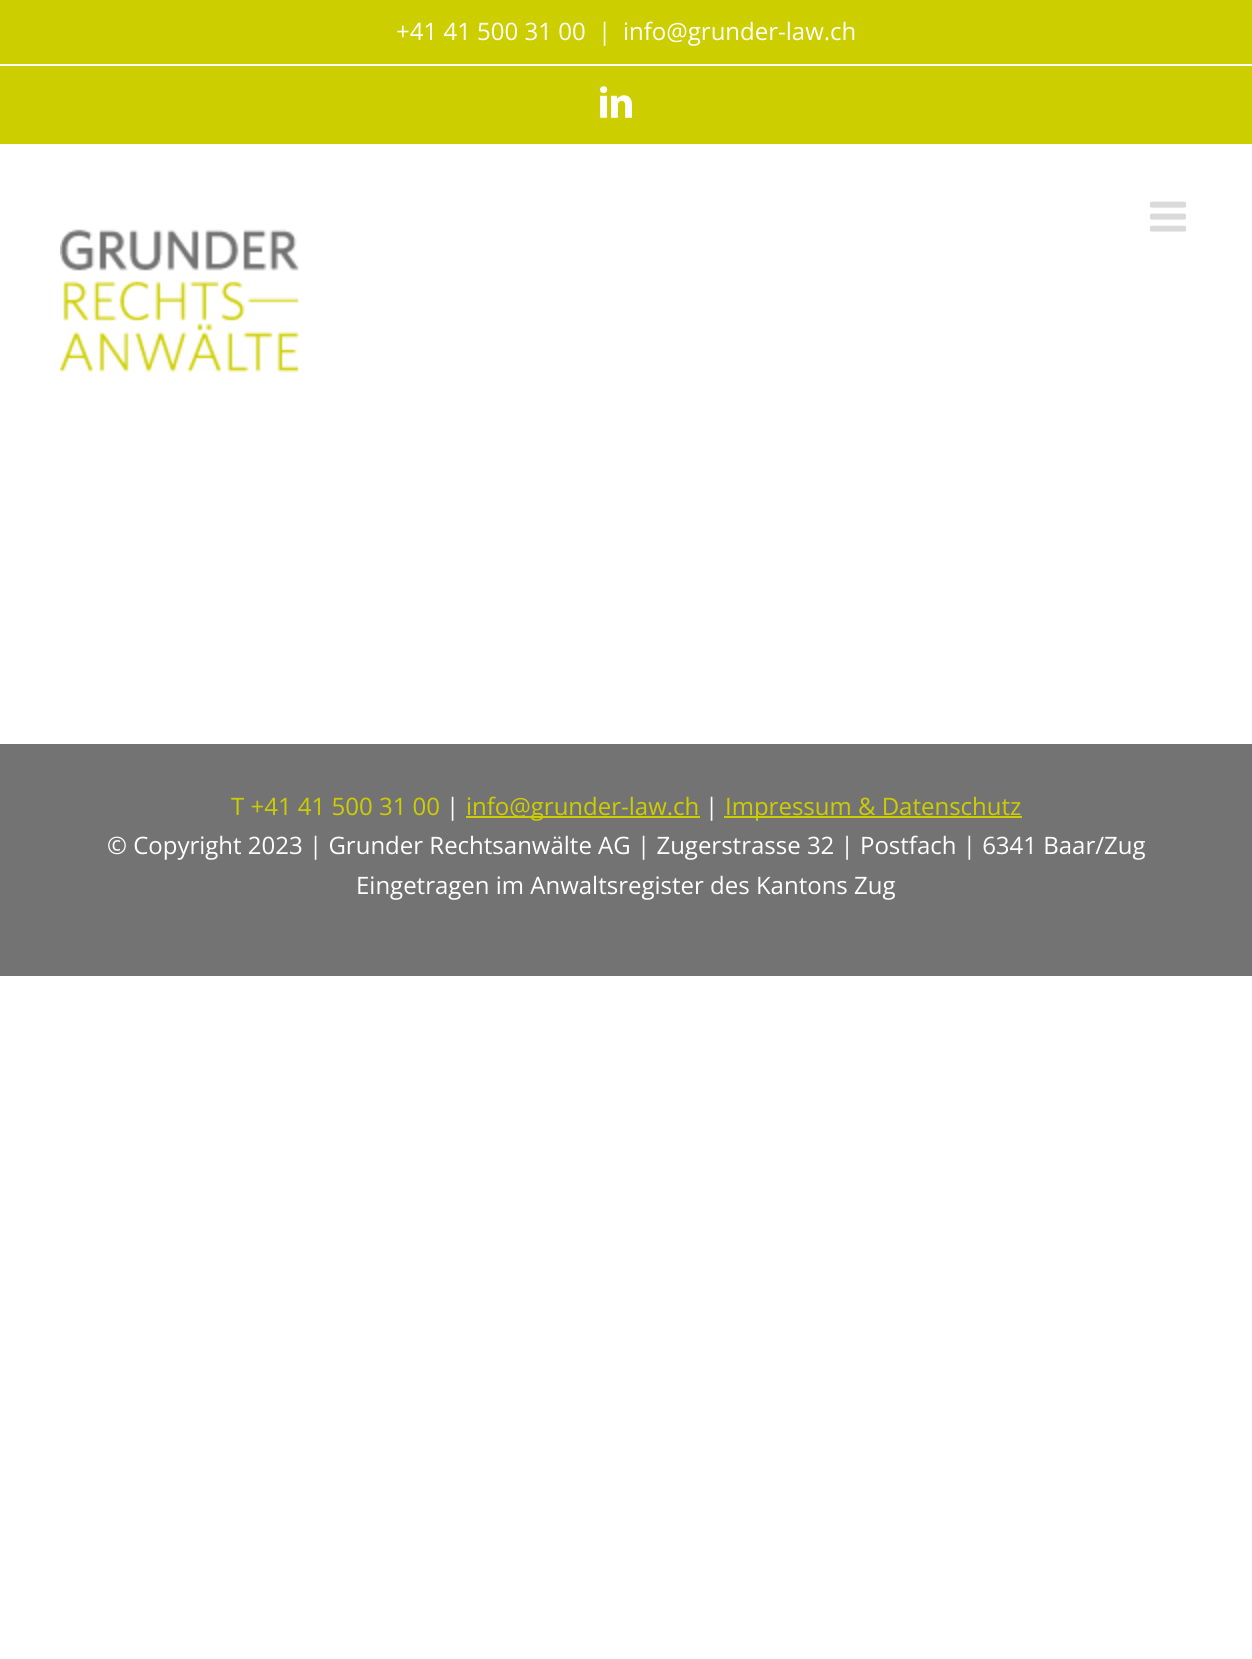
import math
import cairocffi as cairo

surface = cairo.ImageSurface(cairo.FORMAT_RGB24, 1252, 1659)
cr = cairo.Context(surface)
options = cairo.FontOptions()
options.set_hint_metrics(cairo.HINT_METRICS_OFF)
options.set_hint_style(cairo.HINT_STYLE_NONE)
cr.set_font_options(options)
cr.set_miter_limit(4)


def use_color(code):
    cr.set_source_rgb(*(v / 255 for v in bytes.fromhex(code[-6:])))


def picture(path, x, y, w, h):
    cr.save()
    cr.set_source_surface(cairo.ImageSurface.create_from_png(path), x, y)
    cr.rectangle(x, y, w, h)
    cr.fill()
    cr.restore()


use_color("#ffffff")
cr.paint()
use_color("#cdce00")
cr.rectangle(0, 0, 1252, 144)
cr.fill()
use_color("#ffffff")
cr.rectangle(0, 64, 1252, 2)
cr.fill()
cr.select_font_face("Open Sans")
cr.set_font_size(24)
cr.move_to(396, 40)
cr.show_text("+41 41 500 31 00")
cr.move_to(598, 40)
cr.show_text("|")
cr.move_to(623, 40)
cr.show_text("info@grunder-law.ch")
picture("img1.png", 600, 86, 32, 32)
picture("img2.png", 1150, 201, 36, 31)
picture("img3.png", 60, 229, 239, 144)
use_color("#747373")
cr.rectangle(0, 744, 1252, 232)
cr.fill()
use_color("#cdce00")
cr.move_to(231, 815)
cr.show_text("T +41 41 500 31 00")
use_color("#ffffff")
cr.move_to(446, 815)
cr.show_text("|")
use_color("#cdce00")
cr.rectangle(466, 816, 234, 2)
cr.fill()
cr.move_to(466, 815)
cr.show_text("info@grunder-law.ch")
use_color("#ffffff")
cr.move_to(705, 815)
cr.show_text("|")
use_color("#cdce00")
cr.rectangle(724, 816, 298, 2)
cr.fill()
cr.move_to(725, 815)
cr.show_text("Impressum & Datenschutz")
use_color("#ffffff")
cr.move_to(107, 854)
cr.show_text("© Copyright 2023 | Grunder Rechtsanwälte AG | Zugerstrasse 32 | Postfach | 6341 Baar/Zug")
cr.move_to(356, 894)
cr.show_text("Eingetragen im Anwaltsregister des Kantons Zug")
surface.write_to_png("result.png")
